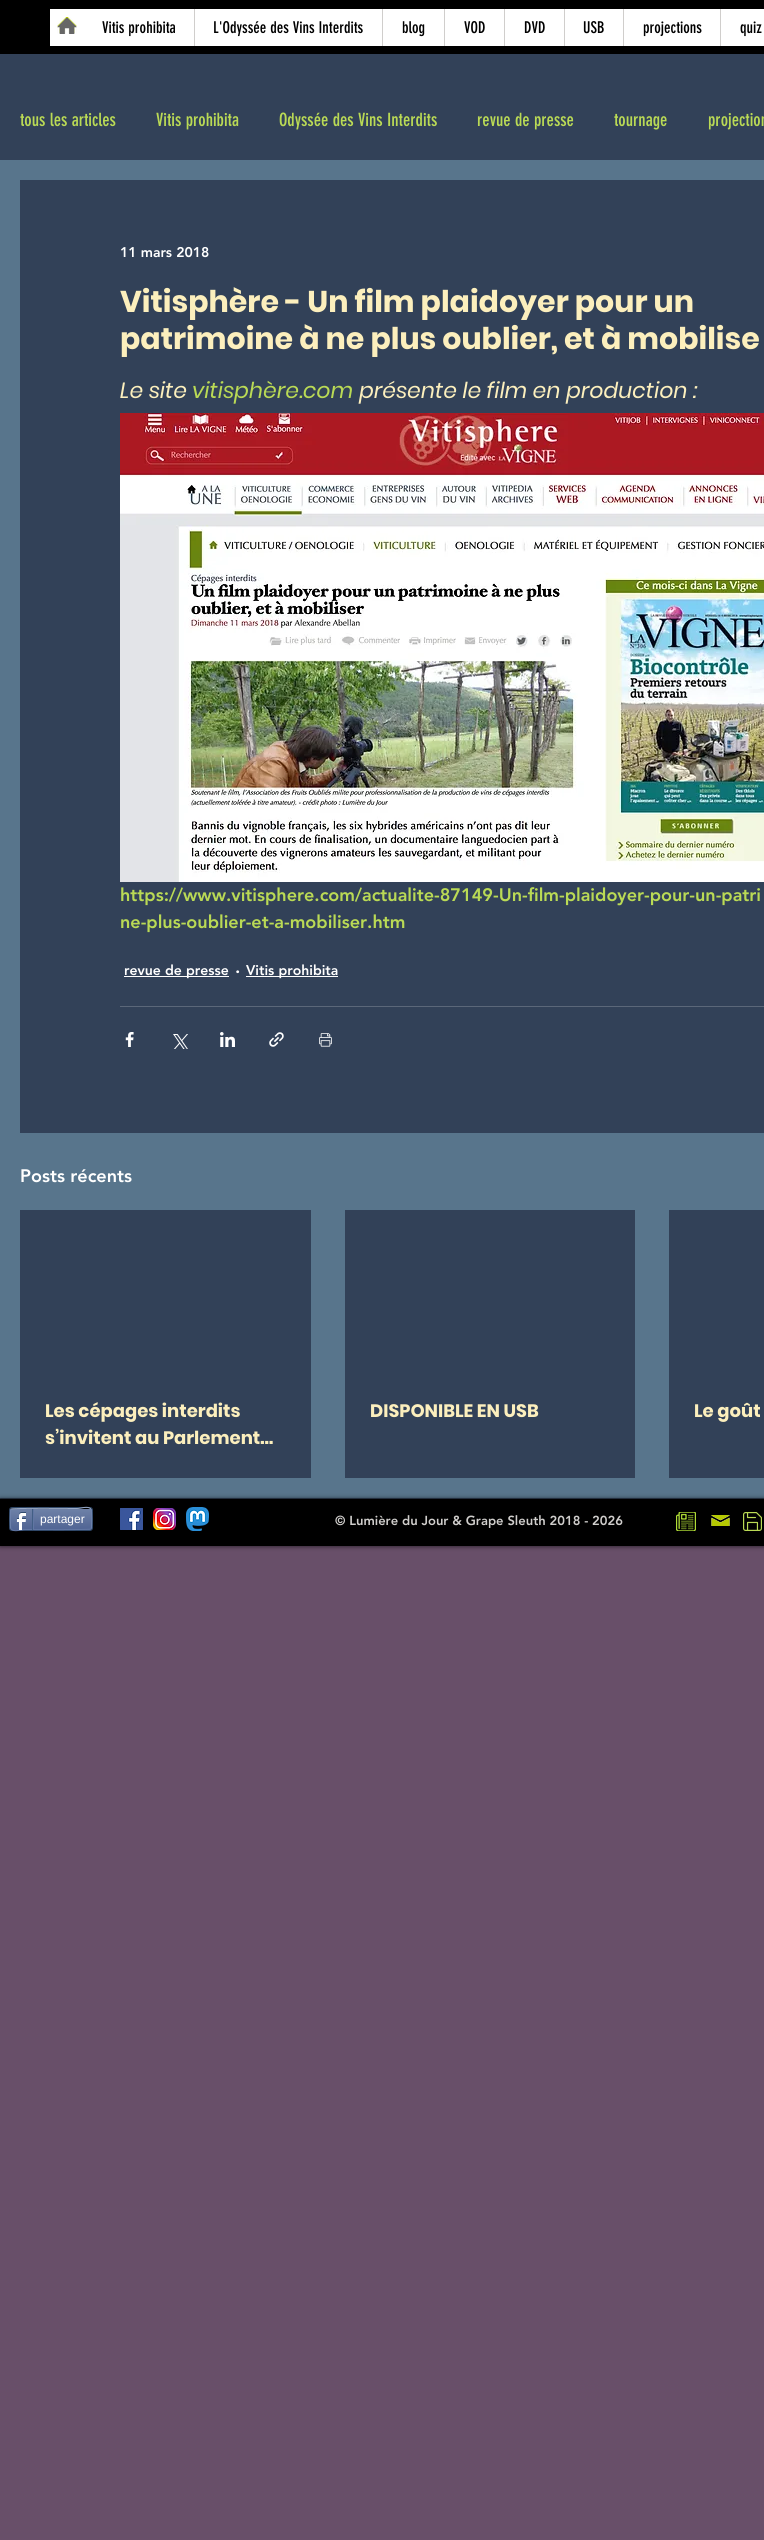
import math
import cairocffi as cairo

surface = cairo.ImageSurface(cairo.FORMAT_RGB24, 764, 2540)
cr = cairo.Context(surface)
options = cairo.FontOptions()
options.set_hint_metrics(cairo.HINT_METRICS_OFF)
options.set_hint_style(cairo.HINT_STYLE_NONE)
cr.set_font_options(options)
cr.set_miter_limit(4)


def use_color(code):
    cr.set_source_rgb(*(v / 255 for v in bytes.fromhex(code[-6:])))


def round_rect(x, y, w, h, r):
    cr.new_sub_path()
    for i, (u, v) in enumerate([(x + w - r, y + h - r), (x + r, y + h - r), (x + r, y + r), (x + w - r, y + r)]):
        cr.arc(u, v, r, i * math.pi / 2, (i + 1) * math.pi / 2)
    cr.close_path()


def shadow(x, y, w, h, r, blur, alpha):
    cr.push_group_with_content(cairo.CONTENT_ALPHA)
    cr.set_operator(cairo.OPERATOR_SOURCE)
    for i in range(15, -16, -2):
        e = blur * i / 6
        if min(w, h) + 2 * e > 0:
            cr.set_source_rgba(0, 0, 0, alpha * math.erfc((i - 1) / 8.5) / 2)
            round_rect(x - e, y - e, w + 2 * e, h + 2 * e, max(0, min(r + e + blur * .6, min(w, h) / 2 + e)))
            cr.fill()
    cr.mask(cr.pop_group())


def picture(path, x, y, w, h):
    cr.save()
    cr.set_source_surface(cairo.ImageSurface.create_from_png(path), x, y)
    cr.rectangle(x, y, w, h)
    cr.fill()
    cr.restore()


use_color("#684f69")
cr.paint()
use_color("#000000")
cr.rectangle(0, 0, 764, 54)
cr.fill()
use_color("#ffffff")
cr.rectangle(50, 9, 714, 37)
cr.fill()
picture("img1.png", 57, 17, 20, 16)
picture("img2.png", 57, 18, 20, 16)
cr.select_font_face("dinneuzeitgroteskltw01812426")
cr.set_font_size(16)
use_color("#000000")
cr.move_to(102, 33)
cr.show_text("Vitis prohibita")
use_color("#d0cecc")
cr.rectangle(194, 9, 1, 37)
cr.fill()
use_color("#000000")
cr.move_to(213, 33)
cr.show_text("L'Odyssée des Vins Interdits")
use_color("#d0cecc")
cr.rectangle(382, 9, 1, 37)
cr.fill()
use_color("#000000")
cr.move_to(402, 33)
cr.show_text("blog")
use_color("#d0cecc")
cr.rectangle(444, 9, 1, 37)
cr.fill()
use_color("#000000")
cr.move_to(464, 33)
cr.show_text("VOD")
use_color("#d0cecc")
cr.rectangle(504, 9, 1, 37)
cr.fill()
use_color("#000000")
cr.move_to(524, 33)
cr.show_text("DVD")
use_color("#d0cecc")
cr.rectangle(564, 9, 1, 37)
cr.fill()
use_color("#000000")
cr.move_to(583, 33)
cr.show_text("USB")
use_color("#d0cecc")
cr.rectangle(623, 9, 1, 37)
cr.fill()
use_color("#000000")
cr.move_to(643, 33)
cr.show_text("projections")
use_color("#d0cecc")
cr.rectangle(720, 9, 1, 37)
cr.fill()
use_color("#000000")
cr.move_to(740, 33)
cr.show_text("quiz")
use_color("#324158")
cr.rectangle(0, 54, 764, 1445)
cr.fill()
use_color("#58758c")
cr.rectangle(0, 160, 764, 1338)
cr.fill()
cr.set_font_size(18)
use_color("#bada55")
cr.move_to(20, 126)
cr.show_text("tous les articles")
cr.move_to(156, 126)
cr.show_text("Vitis prohibita")
cr.move_to(279, 126)
cr.show_text("Odyssée des Vins Interdits")
cr.move_to(477, 126)
cr.show_text("revue de presse")
cr.move_to(614, 126)
cr.show_text("tournage")
cr.move_to(708, 126)
cr.show_text("projection")
use_color("#324158")
cr.rectangle(20, 180, 744, 953)
cr.fill()
cr.select_font_face("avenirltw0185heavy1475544 Black")
cr.set_font_size(14)
use_color("#ffffff")
cr.move_to(120, 257)
cr.show_text("11 mars 2018")
cr.select_font_face("Poppins", cairo.FONT_SLANT_NORMAL, cairo.FONT_WEIGHT_BOLD)
cr.set_font_size(30)
use_color("#fcefbd")
cr.move_to(120, 312)
cr.show_text("Vitisphère - Un film plaidoyer pour un")
cr.move_to(120, 349)
cr.show_text("patrimoine à ne plus oublier, et à mobilise")
cr.select_font_face("Poppins", cairo.FONT_SLANT_ITALIC)
cr.set_font_size(22)
cr.move_to(120, 398)
cr.show_text("Le site")
use_color("#bada55")
cr.move_to(192, 398)
cr.show_text("vitisphère.com")
use_color("#fcefbd")
cr.move_to(359, 398)
cr.show_text("présente le film en production :")
picture("img3.png", 120, 413, 644, 469)
cr.select_font_face("avenirltw0185heavy1475544 Black")
cr.set_font_size(18)
use_color("#bada55")
cr.move_to(120, 901)
cr.show_text("https://www.vitisphere.com/actualite-87149-Un-film-plaidoyer-pour-un-patri")
cr.move_to(120, 928)
cr.show_text("ne-plus-oublier-et-a-mobiliser.htm")
use_color("#ffffff")
cr.rectangle(124, 976, 105, 1)
cr.fill()
cr.set_font_size(14)
cr.move_to(124, 975)
cr.show_text("revue de presse")
cr.set_font_size(18)
cr.move_to(235, 977)
cr.show_text("·")
cr.rectangle(246, 976, 92, 1)
cr.fill()
cr.set_font_size(14)
cr.move_to(246, 975)
cr.show_text("Vitis prohibita")
use_color("#5b6779")
cr.rectangle(120, 1006, 644, 1)
cr.fill()
picture("img4.png", 125, 1032, 9, 15)
picture("img5.png", 173, 1034, 15, 15)
picture("img6.png", 220, 1032, 15, 15)
picture("img7.png", 269, 1032, 15, 15)
picture("img8.png", 319, 1033, 13, 14)
cr.set_font_size(18)
use_color("#ffffff")
cr.move_to(20, 1182)
cr.show_text("Posts récents")
use_color("#324158")
cr.rectangle(20, 1210, 291, 268)
cr.fill()
cr.select_font_face("Poppins", cairo.FONT_SLANT_NORMAL, cairo.FONT_WEIGHT_BOLD)
use_color("#fcefbd")
cr.move_to(45, 1417)
cr.show_text("Les cépages interdits")
cr.move_to(45, 1444)
cr.show_text("s’invitent au Parlement…")
use_color("#324158")
cr.rectangle(345, 1210, 290, 268)
cr.fill()
use_color("#fcefbd")
cr.move_to(370, 1417)
cr.show_text("DISPONIBLE EN USB")
use_color("#324158")
cr.rectangle(669, 1210, 95, 268)
cr.fill()
use_color("#fcefbd")
cr.move_to(694, 1417)
cr.show_text("Le goût")
use_color("#000000")
shadow(0, 1499, 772, 47, 0, 2.5, 0.7)
use_color("#000000")
cr.rectangle(0, 1499, 764, 47)
cr.fill()
round_rect(9.5, 1507.5, 83, 23, 2.5)
use_color("#2d4565")
cr.set_line_width(1)
cr.stroke()
picture("img9.png", 10, 1509, 82, 21)
cr.new_path()
cr.move_to(11, 1509)
cr.curve_to(12, 1508, 70.5, 1508.5, 77, 1508.5)
cr.curve_to(81.5, 1508.5, 87.5, 1505.5, 91, 1509)
use_color("#9aabc6")
cr.stroke()
cr.new_path()
cr.move_to(91, 1509)
cr.curve_to(92, 1509.5, 92, 1528.5, 91, 1529)
use_color("#6f83ad")
cr.stroke()
cr.new_path()
cr.move_to(91, 1529)
cr.curve_to(90, 1530, 31.5, 1529.5, 25, 1529.5)
cr.curve_to(20.5, 1529.5, 14.5, 1532.5, 11, 1529)
use_color("#6176a3")
cr.stroke()
cr.new_path()
cr.move_to(11, 1529)
cr.curve_to(10, 1528.5, 10, 1509.5, 11, 1509)
use_color("#6f83ad")
cr.stroke()
picture("img10.png", 16, 1512, 10, 18)
use_color("#425e85")
cr.rectangle(32, 1509, 1, 21)
cr.fill()
cr.select_font_face("Liberation Sans")
cr.set_font_size(12)
use_color("#ffffff")
cr.move_to(40, 1523)
cr.show_text("partager")
use_color("#6176a3")
cr.rectangle(33, 1509, 1, 20)
cr.fill()
picture("img11.png", 120, 1508, 23, 22)
picture("img12.png", 153, 1508, 23, 22)
picture("img13.png", 186, 1507, 23, 24)
cr.select_font_face("avenirltw0185heavy1475544 Black")
cr.set_font_size(13)
use_color("#d0cecc")
cr.move_to(335, 1525)
cr.show_text("© Lumière du Jour & Grape Sleuth 2018 - 2026")
picture("img14.png", 676, 1512, 20, 19)
picture("img15.png", 711, 1515, 19, 11)
picture("img16.png", 743, 1512, 19, 19)
surface.write_to_png("result.png")
